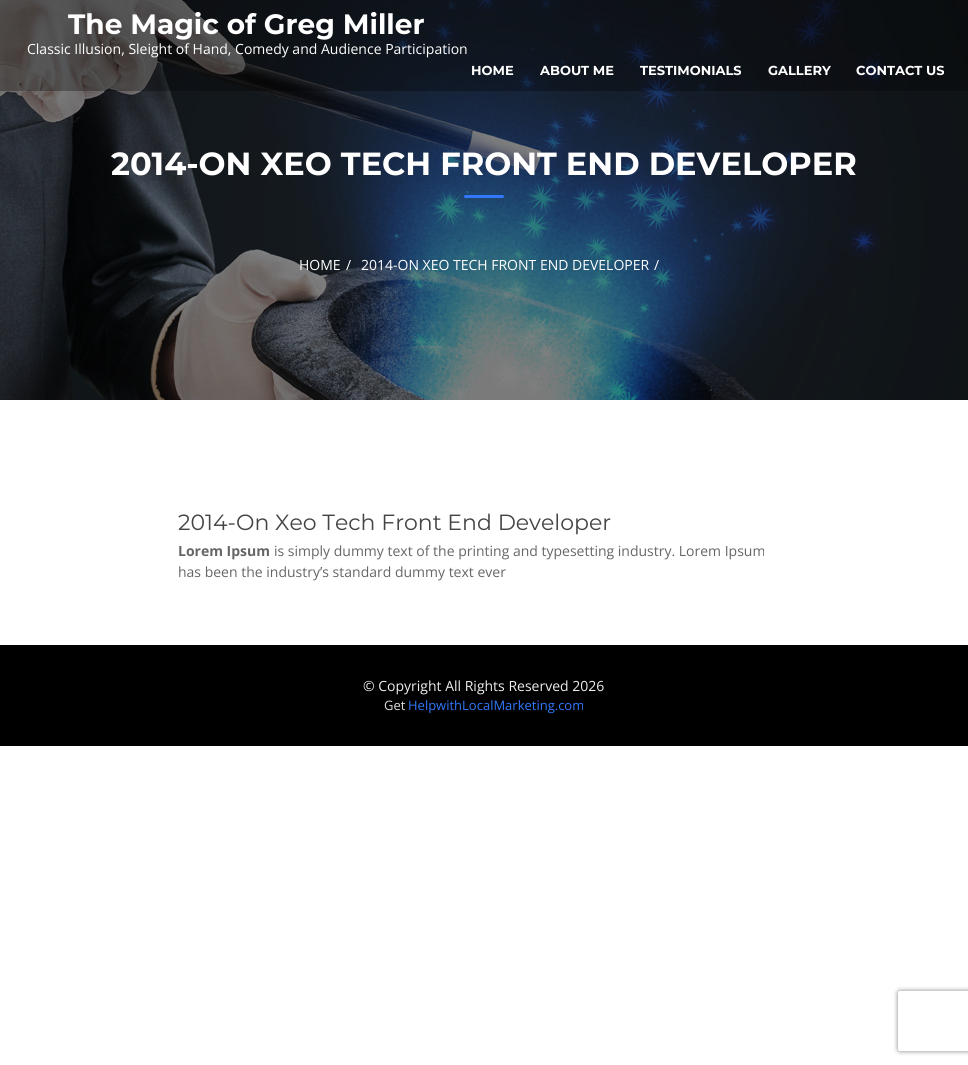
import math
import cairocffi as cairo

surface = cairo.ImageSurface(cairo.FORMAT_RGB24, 968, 1065)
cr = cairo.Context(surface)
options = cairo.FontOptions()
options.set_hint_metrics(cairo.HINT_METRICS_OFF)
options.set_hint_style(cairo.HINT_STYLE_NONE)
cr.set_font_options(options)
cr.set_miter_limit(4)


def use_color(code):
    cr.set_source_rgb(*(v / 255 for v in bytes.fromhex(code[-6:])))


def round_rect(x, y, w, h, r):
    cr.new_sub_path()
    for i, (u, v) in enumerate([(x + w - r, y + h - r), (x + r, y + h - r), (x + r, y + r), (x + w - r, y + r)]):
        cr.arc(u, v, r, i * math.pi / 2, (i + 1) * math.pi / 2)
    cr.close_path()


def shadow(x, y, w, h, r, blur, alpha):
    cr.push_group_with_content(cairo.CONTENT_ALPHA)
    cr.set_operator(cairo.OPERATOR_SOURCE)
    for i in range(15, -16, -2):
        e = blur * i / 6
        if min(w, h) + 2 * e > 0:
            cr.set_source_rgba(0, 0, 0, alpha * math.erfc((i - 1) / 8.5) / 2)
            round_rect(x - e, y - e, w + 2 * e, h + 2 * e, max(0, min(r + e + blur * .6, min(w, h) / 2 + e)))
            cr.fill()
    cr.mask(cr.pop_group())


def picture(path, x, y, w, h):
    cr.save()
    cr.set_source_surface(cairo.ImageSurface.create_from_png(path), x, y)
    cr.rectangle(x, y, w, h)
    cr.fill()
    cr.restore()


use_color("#ffffff")
cr.paint()
picture("img1.png", 0, 0, 968, 400)
cr.set_source_rgba(0, 0, 0, 0.3)
cr.rectangle(0, 0, 968, 91)
cr.fill()
cr.select_font_face("Montserrat", cairo.FONT_SLANT_NORMAL, cairo.FONT_WEIGHT_BOLD)
cr.set_font_size(28)
use_color("#ffffff")
cr.move_to(68, 34)
cr.show_text("The Magic of Greg Miller")
cr.select_font_face("Open Sans")
cr.set_font_size(14)
cr.move_to(27, 54)
cr.show_text("Classic Illusion, Sleight of Hand, Comedy and Audience Participation")
cr.select_font_face("Montserrat", cairo.FONT_SLANT_NORMAL, cairo.FONT_WEIGHT_BOLD)
cr.set_font_size(13)
cr.move_to(471, 75)
cr.show_text("HOME")
cr.move_to(540, 75)
cr.show_text("ABOUT ME")
cr.move_to(640, 75)
cr.show_text("TESTIMONIALS")
cr.move_to(768, 75)
cr.show_text("GALLERY")
cr.move_to(856, 75)
cr.show_text("CONTACT US")
cr.set_font_size(32)
cr.move_to(111, 175)
cr.show_text("2014-ON XEO TECH FRONT END DEVELOPER")
use_color("#3178fb")
round_rect(464, 195, 40, 3, 1.5)
cr.fill()
cr.select_font_face("Open Sans")
cr.set_font_size(14)
use_color("#ffffff")
cr.move_to(299, 270)
cr.show_text("HOME")
cr.move_to(346, 270)
cr.show_text("/")
cr.move_to(361, 270)
cr.show_text("2014-ON XEO TECH FRONT END DEVELOPER")
cr.move_to(654, 270)
cr.show_text("/")
cr.select_font_face("Montserrat")
cr.set_font_size(22)
use_color("#444444")
cr.move_to(178, 530)
cr.show_text("2014-On Xeo Tech Front End Developer")
cr.select_font_face("Open Sans", cairo.FONT_SLANT_NORMAL, cairo.FONT_WEIGHT_BOLD)
cr.set_font_size(14)
use_color("#666666")
cr.move_to(178, 556)
cr.show_text("Lorem Ipsum")
cr.select_font_face("Open Sans")
cr.move_to(274, 556)
cr.show_text("is simply dummy text of the printing and typesetting industry. Lorem Ipsum")
cr.move_to(178, 577)
cr.show_text("has been the industry’s standard dummy text ever")
use_color("#000000")
cr.rectangle(0, 645, 968, 101)
cr.fill()
use_color("#eeeeee")
cr.move_to(363, 691)
cr.show_text("© Copyright All Rights Reserved 2026")
cr.set_font_size(13)
use_color("#dddddd")
cr.move_to(384, 710)
cr.show_text("Get")
use_color("#3178fb")
cr.move_to(408, 710)
cr.show_text("HelpwithLocalMarketing.com")
cr.save()
cr.set_fill_rule(cairo.FILL_RULE_EVEN_ODD)
cr.new_path()
cr.move_to(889, 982)
cr.line_to(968, 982)
cr.line_to(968, 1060)
cr.line_to(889, 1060)
cr.close_path()
cr.move_to(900, 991)
cr.line_to(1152, 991)
cr.curve_to(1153, 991, 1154, 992, 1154, 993)
cr.line_to(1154, 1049)
cr.curve_to(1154, 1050, 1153, 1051, 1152, 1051)
cr.line_to(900, 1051)
cr.curve_to(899, 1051, 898, 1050, 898, 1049)
cr.line_to(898, 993)
cr.curve_to(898, 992, 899, 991, 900, 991)
cr.close_path()
cr.clip()
use_color("#808080")
shadow(898, 991, 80, 60, 2, 2.5, 1)
cr.restore()
surface.write_to_png("result.png")
